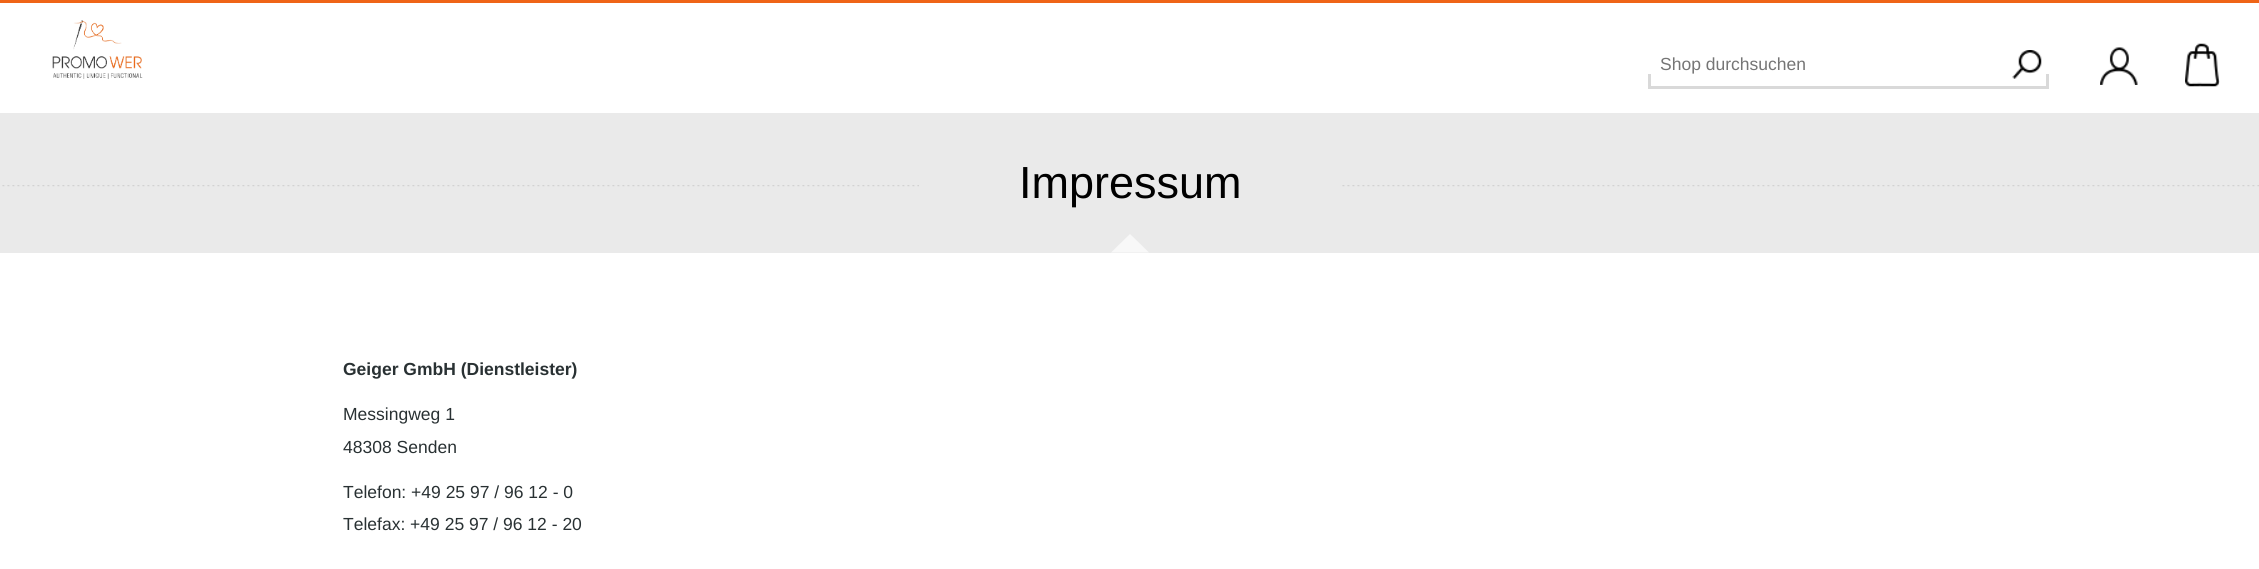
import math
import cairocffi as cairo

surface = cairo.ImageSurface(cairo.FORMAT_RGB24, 2259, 569)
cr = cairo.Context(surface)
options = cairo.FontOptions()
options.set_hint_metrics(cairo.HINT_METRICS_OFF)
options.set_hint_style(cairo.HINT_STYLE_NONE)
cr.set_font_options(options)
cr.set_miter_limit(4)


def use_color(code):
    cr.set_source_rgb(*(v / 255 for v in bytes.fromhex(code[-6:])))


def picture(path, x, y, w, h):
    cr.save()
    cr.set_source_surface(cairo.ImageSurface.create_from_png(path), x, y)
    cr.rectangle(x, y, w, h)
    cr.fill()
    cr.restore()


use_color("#ffffff")
cr.paint()
use_color("#ef6417")
cr.rectangle(0, 0, 2259, 3)
cr.fill()
picture("img1.png", 52, 20, 91, 59)
use_color("#d9d9d9")
cr.rectangle(1648, 86, 401, 3)
cr.fill()
cr.select_font_face("Liberation Sans")
cr.set_font_size(17.5)
use_color("#757575")
cr.move_to(1660, 70)
cr.show_text("Shop durchsuchen")
picture("img2.png", 2012, 50, 30, 29)
use_color("#d9d9d9")
cr.rectangle(1648, 74, 3, 12)
cr.fill()
cr.rectangle(2046, 74, 3, 12)
cr.fill()
picture("img3.png", 2100, 47, 38, 38)
picture("img4.png", 2185, 43, 35, 44)
use_color("#eaeaea")
cr.rectangle(0, 113, 2259, 140)
cr.fill()
picture("img5.png", 2, 185, 2257, 2)
cr.rectangle(919, 185, 421, 2)
cr.fill()
cr.set_font_size(45)
use_color("#000000")
cr.move_to(1019, 198)
cr.show_text("Impressum")
use_color("#f8f8f8")
cr.new_path()
cr.move_to(1149, 252.5)
cr.line_to(1111, 252.5)
cr.line_to(1130, 234)
cr.close_path()
cr.fill()
cr.select_font_face("Liberation Sans", cairo.FONT_SLANT_NORMAL, cairo.FONT_WEIGHT_BOLD)
cr.set_font_size(17.5)
use_color("#293133")
cr.move_to(343, 375)
cr.show_text("Geiger GmbH (Dienstleister)")
cr.select_font_face("Liberation Sans")
cr.move_to(343, 420)
cr.show_text("Messingweg 1")
cr.move_to(343, 453)
cr.show_text("48308 Senden")
cr.move_to(343, 498)
cr.show_text("Telefon: +49 25 97 / 96 12 - 0")
cr.move_to(343, 530)
cr.show_text("Telefax: +49 25 97 / 96 12 - 20")
surface.write_to_png("result.png")
